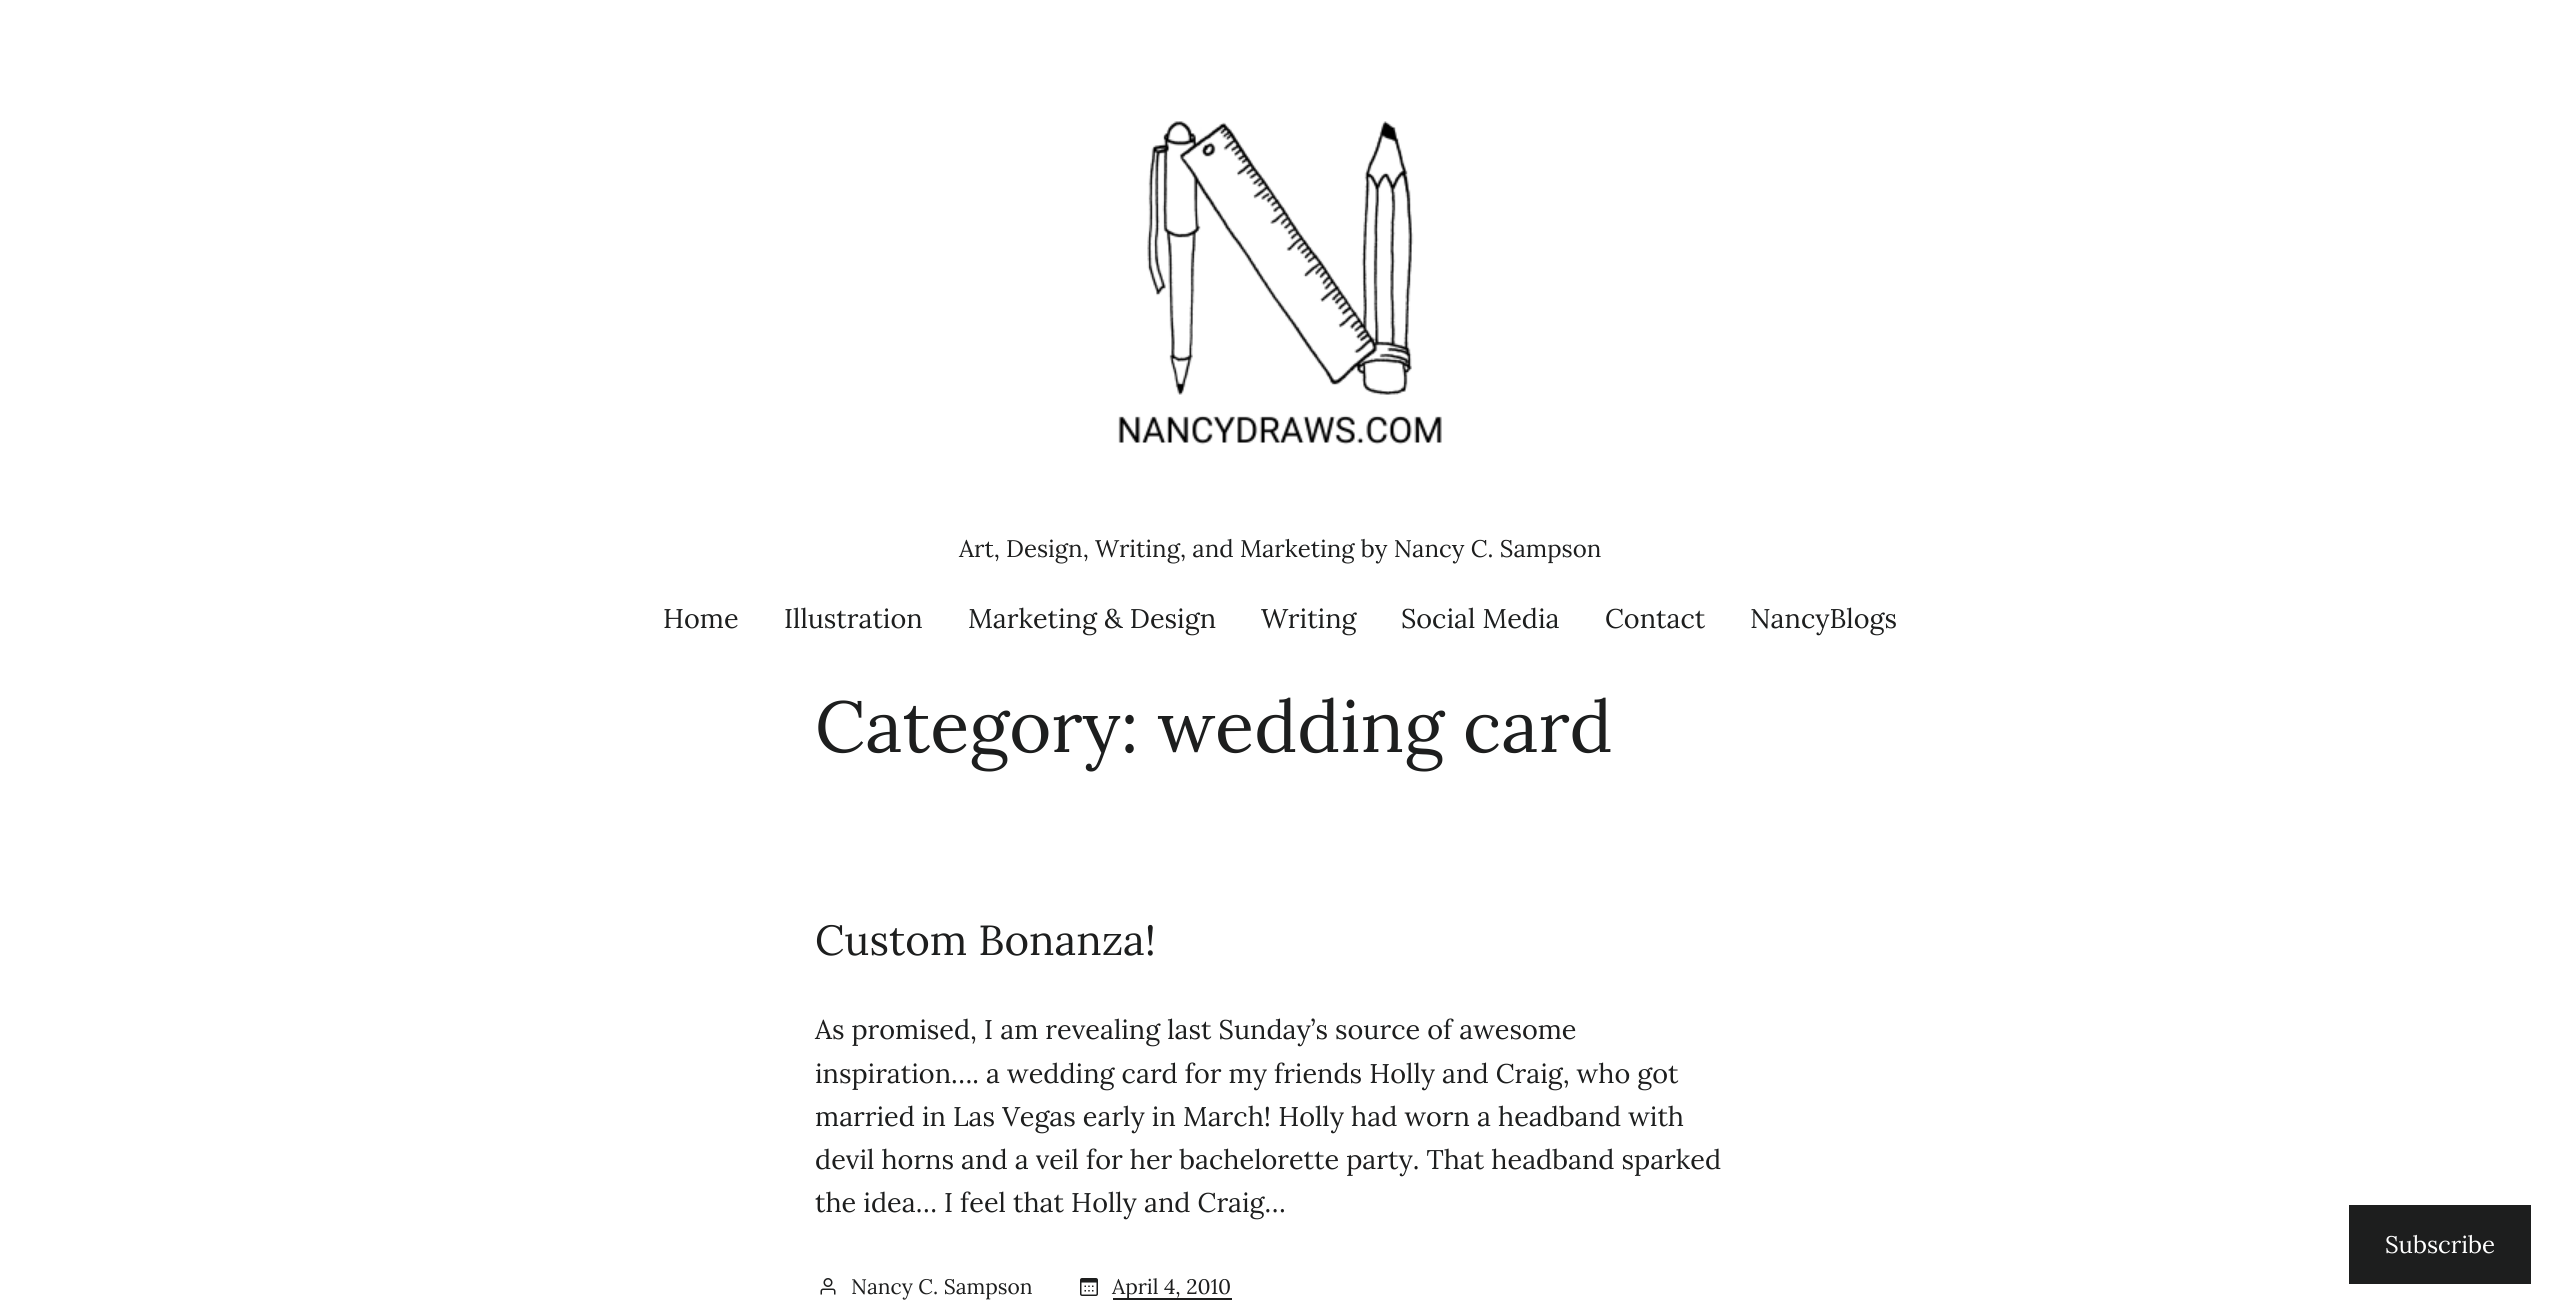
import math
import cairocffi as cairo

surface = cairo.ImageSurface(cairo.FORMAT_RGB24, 2560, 1313)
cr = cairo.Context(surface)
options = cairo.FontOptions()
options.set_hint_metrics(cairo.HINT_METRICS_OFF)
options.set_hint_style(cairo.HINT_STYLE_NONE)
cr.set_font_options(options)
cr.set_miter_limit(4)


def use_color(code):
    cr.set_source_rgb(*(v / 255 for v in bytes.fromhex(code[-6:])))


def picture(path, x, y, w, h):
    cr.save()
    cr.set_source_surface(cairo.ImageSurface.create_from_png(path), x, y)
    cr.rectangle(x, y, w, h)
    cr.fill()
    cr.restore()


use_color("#ffffff")
cr.paint()
picture("img1.png", 1118, 121, 324, 324)
cr.select_font_face("Lora")
cr.set_font_size(24)
use_color("#1d1e1e")
cr.move_to(959, 557)
cr.show_text("Art, Design, Writing, and Marketing by Nancy C. Sampson")
cr.set_font_size(27)
cr.move_to(663, 628)
cr.show_text("Home")
cr.move_to(784, 628)
cr.show_text("Illustration")
cr.move_to(968, 628)
cr.show_text("Marketing & Design")
cr.move_to(1261, 628)
cr.show_text("Writing")
cr.move_to(1401, 628)
cr.show_text("Social Media")
cr.move_to(1605, 628)
cr.show_text("Contact")
cr.move_to(1750, 628)
cr.show_text("NancyBlogs")
cr.set_font_size(72)
cr.move_to(815, 752)
cr.show_text("Category: wedding card")
cr.set_font_size(42)
cr.move_to(815, 955)
cr.show_text("Custom Bonanza!")
cr.set_font_size(27)
cr.move_to(815, 1039)
cr.show_text("As promised, I am revealing last Sunday’s source of awesome")
cr.move_to(815, 1083)
cr.show_text("inspiration…. a wedding card for my friends Holly and Craig, who got")
cr.move_to(815, 1126)
cr.show_text("married in Las Vegas early in March! Holly had worn a headband with")
cr.move_to(815, 1169)
cr.show_text("devil horns and a veil for her bachelorette party. That headband sparked")
cr.move_to(815, 1212)
cr.show_text("the idea… I feel that Holly and Craig…")
picture("img2.png", 820, 1278, 16, 17)
cr.set_font_size(21)
cr.move_to(851, 1294)
cr.show_text("Nancy C. Sampson")
picture("img3.png", 1080, 1278, 18, 18)
cr.rectangle(1113, 1298, 119, 2)
cr.fill()
cr.move_to(1112, 1294)
cr.show_text("April 4, 2010")
cr.rectangle(2349, 1205, 182, 79)
cr.fill()
cr.set_font_size(24)
use_color("#ffffff")
cr.move_to(2385, 1253)
cr.show_text("Subscribe")
surface.write_to_png("result.png")
